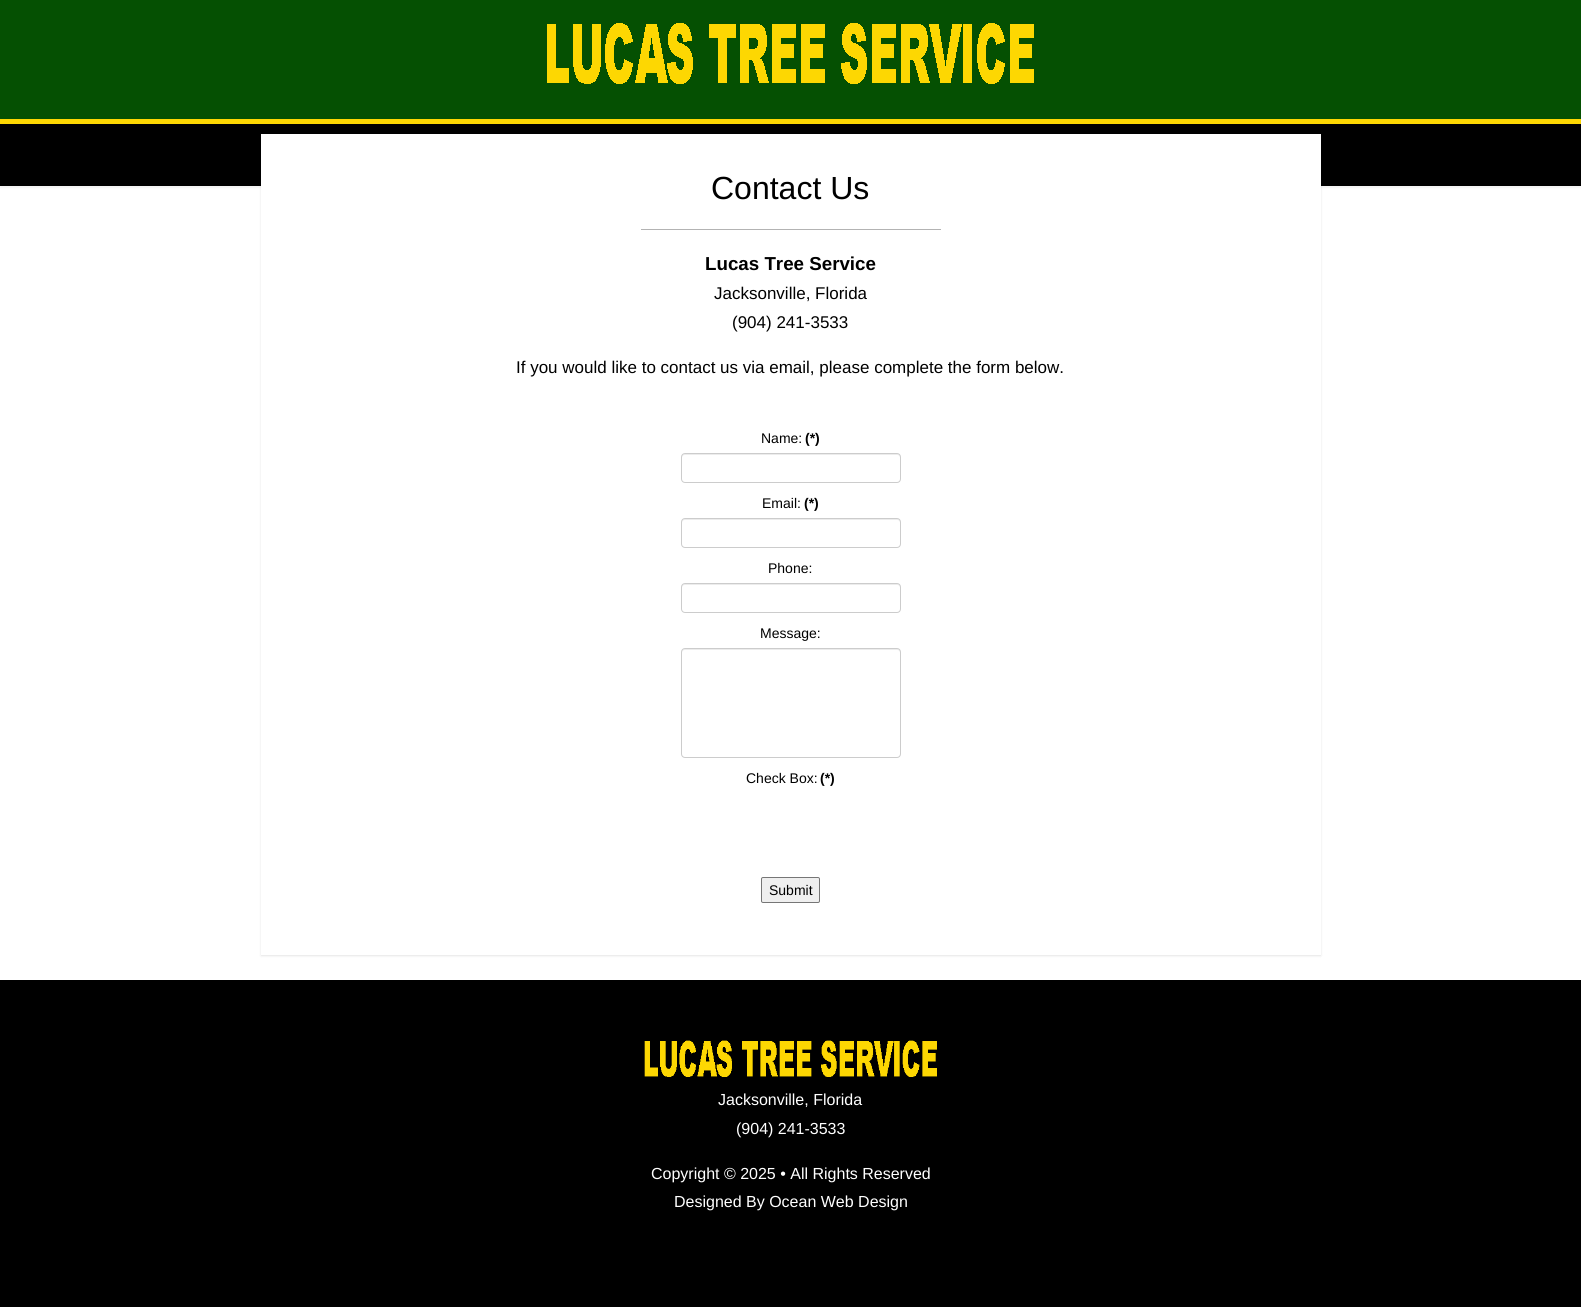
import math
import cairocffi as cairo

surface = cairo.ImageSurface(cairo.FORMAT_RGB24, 1581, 1307)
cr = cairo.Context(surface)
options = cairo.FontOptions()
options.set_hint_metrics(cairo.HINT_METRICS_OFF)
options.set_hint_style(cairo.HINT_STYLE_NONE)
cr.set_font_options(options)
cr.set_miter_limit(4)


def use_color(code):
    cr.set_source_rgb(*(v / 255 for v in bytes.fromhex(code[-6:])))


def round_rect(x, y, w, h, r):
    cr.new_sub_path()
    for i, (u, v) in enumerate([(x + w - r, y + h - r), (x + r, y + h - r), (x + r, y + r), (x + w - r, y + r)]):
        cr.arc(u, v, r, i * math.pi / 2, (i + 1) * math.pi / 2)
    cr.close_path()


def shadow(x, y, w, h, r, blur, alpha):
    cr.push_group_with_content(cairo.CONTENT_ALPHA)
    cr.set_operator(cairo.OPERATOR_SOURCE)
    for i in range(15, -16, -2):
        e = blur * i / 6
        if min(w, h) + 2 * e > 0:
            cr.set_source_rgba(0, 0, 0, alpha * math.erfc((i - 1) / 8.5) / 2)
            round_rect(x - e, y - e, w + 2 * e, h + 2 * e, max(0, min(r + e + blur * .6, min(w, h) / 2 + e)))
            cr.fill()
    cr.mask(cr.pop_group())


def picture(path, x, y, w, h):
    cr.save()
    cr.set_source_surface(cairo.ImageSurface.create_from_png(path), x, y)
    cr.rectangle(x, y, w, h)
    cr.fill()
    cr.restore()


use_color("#ffffff")
cr.paint()
use_color("#055002")
cr.rectangle(0, 0, 1581, 119)
cr.fill()
picture("img1.png", 547, 23, 487, 61)
use_color("#000000")
shadow(0, 121, 1581, 67, 0, 1, 0.05)
use_color("#000000")
cr.rectangle(0, 124, 1581, 62)
cr.fill()
use_color("#fdd702")
cr.rectangle(0, 119, 1581, 5)
cr.fill()
use_color("#000000")
shadow(261, 135, 1060, 821, 0, 1, 0.1)
use_color("#ffffff")
cr.rectangle(261, 134, 1060, 821)
cr.fill()
cr.select_font_face("Liberation Sans")
cr.set_font_size(32)
use_color("#000000")
cr.move_to(711, 199)
cr.show_text("Contact Us")
use_color("#b3b3b3")
cr.rectangle(641, 229, 300, 1)
cr.fill()
cr.select_font_face("Liberation Sans", cairo.FONT_SLANT_NORMAL, cairo.FONT_WEIGHT_BOLD)
cr.set_font_size(18.75)
use_color("#000000")
cr.move_to(705, 270)
cr.show_text("Lucas Tree Service")
cr.select_font_face("Liberation Sans")
cr.set_font_size(17)
cr.move_to(714, 299)
cr.show_text("Jacksonville, Florida")
cr.move_to(732, 328)
cr.show_text("(904) 241-3533")
cr.move_to(516, 373)
cr.show_text("If you would like to contact us via email, please complete the form below.")
cr.set_font_size(14)
cr.move_to(761, 443)
cr.show_text("Name:")
cr.select_font_face("Liberation Sans", cairo.FONT_SLANT_NORMAL, cairo.FONT_WEIGHT_BOLD)
cr.move_to(805, 443)
cr.show_text("(*)")
use_color("#ececec")
cr.new_path()
cr.move_to(685, 455)
cr.line_to(897, 455)
cr.curve_to(899, 455, 900, 456, 900, 458)
cr.line_to(900, 457)
cr.curve_to(900, 455, 899, 454, 897, 454)
cr.line_to(685, 454)
cr.curve_to(683, 454, 682, 455, 682, 457)
cr.line_to(682, 458)
cr.curve_to(682, 456, 683, 455, 685, 455)
cr.close_path()
cr.fill()
round_rect(681.5, 453.5, 219, 29, 3.5)
use_color("#cccccc")
cr.set_line_width(1)
cr.stroke()
cr.select_font_face("Liberation Sans")
use_color("#000000")
cr.move_to(762, 508)
cr.show_text("Email:")
cr.select_font_face("Liberation Sans", cairo.FONT_SLANT_NORMAL, cairo.FONT_WEIGHT_BOLD)
cr.move_to(804, 508)
cr.show_text("(*)")
use_color("#ececec")
cr.new_path()
cr.move_to(685, 520)
cr.line_to(897, 520)
cr.curve_to(899, 520, 900, 521, 900, 523)
cr.line_to(900, 522)
cr.curve_to(900, 520, 899, 519, 897, 519)
cr.line_to(685, 519)
cr.curve_to(683, 519, 682, 520, 682, 522)
cr.line_to(682, 523)
cr.curve_to(682, 521, 683, 520, 685, 520)
cr.close_path()
cr.fill()
round_rect(681.5, 518.5, 219, 29, 3.5)
use_color("#cccccc")
cr.stroke()
cr.select_font_face("Liberation Sans")
use_color("#000000")
cr.move_to(768, 573)
cr.show_text("Phone:")
use_color("#ececec")
cr.new_path()
cr.move_to(685, 585)
cr.line_to(897, 585)
cr.curve_to(899, 585, 900, 586, 900, 588)
cr.line_to(900, 587)
cr.curve_to(900, 585, 899, 584, 897, 584)
cr.line_to(685, 584)
cr.curve_to(683, 584, 682, 585, 682, 587)
cr.line_to(682, 588)
cr.curve_to(682, 586, 683, 585, 685, 585)
cr.close_path()
cr.fill()
round_rect(681.5, 583.5, 219, 29, 3.5)
use_color("#cccccc")
cr.stroke()
use_color("#000000")
cr.move_to(760, 638)
cr.show_text("Message:")
use_color("#ececec")
cr.new_path()
cr.move_to(685, 650)
cr.line_to(897, 650)
cr.curve_to(899, 650, 900, 651, 900, 653)
cr.line_to(900, 652)
cr.curve_to(900, 650, 899, 649, 897, 649)
cr.line_to(685, 649)
cr.curve_to(683, 649, 682, 650, 682, 652)
cr.line_to(682, 653)
cr.curve_to(682, 651, 683, 650, 685, 650)
cr.close_path()
cr.fill()
round_rect(681.5, 648.5, 219, 109, 3.5)
use_color("#cccccc")
cr.stroke()
use_color("#000000")
cr.move_to(746, 783)
cr.show_text("Check Box:")
cr.select_font_face("Liberation Sans", cairo.FONT_SLANT_NORMAL, cairo.FONT_WEIGHT_BOLD)
cr.move_to(820, 783)
cr.show_text("(*)")
use_color("#efefef")
round_rect(761.5, 877.5, 58, 25, 1.5)
cr.fill_preserve()
use_color("#767676")
cr.stroke()
cr.select_font_face("Liberation Sans")
use_color("#000000")
cr.move_to(769, 895)
cr.show_text("Submit")
cr.rectangle(0, 980, 1581, 327)
cr.fill()
picture("img2.png", 644, 1040, 293, 37)
cr.set_font_size(16)
use_color("#ffffff")
cr.move_to(718, 1105)
cr.show_text("Jacksonville, Florida")
cr.move_to(736, 1134)
cr.show_text("(904) 241-3533")
cr.move_to(651, 1179)
cr.show_text("Copyright © 2025 • All Rights Reserved")
cr.move_to(674, 1207)
cr.show_text("Designed By Ocean Web Design")
surface.write_to_png("result.png")
